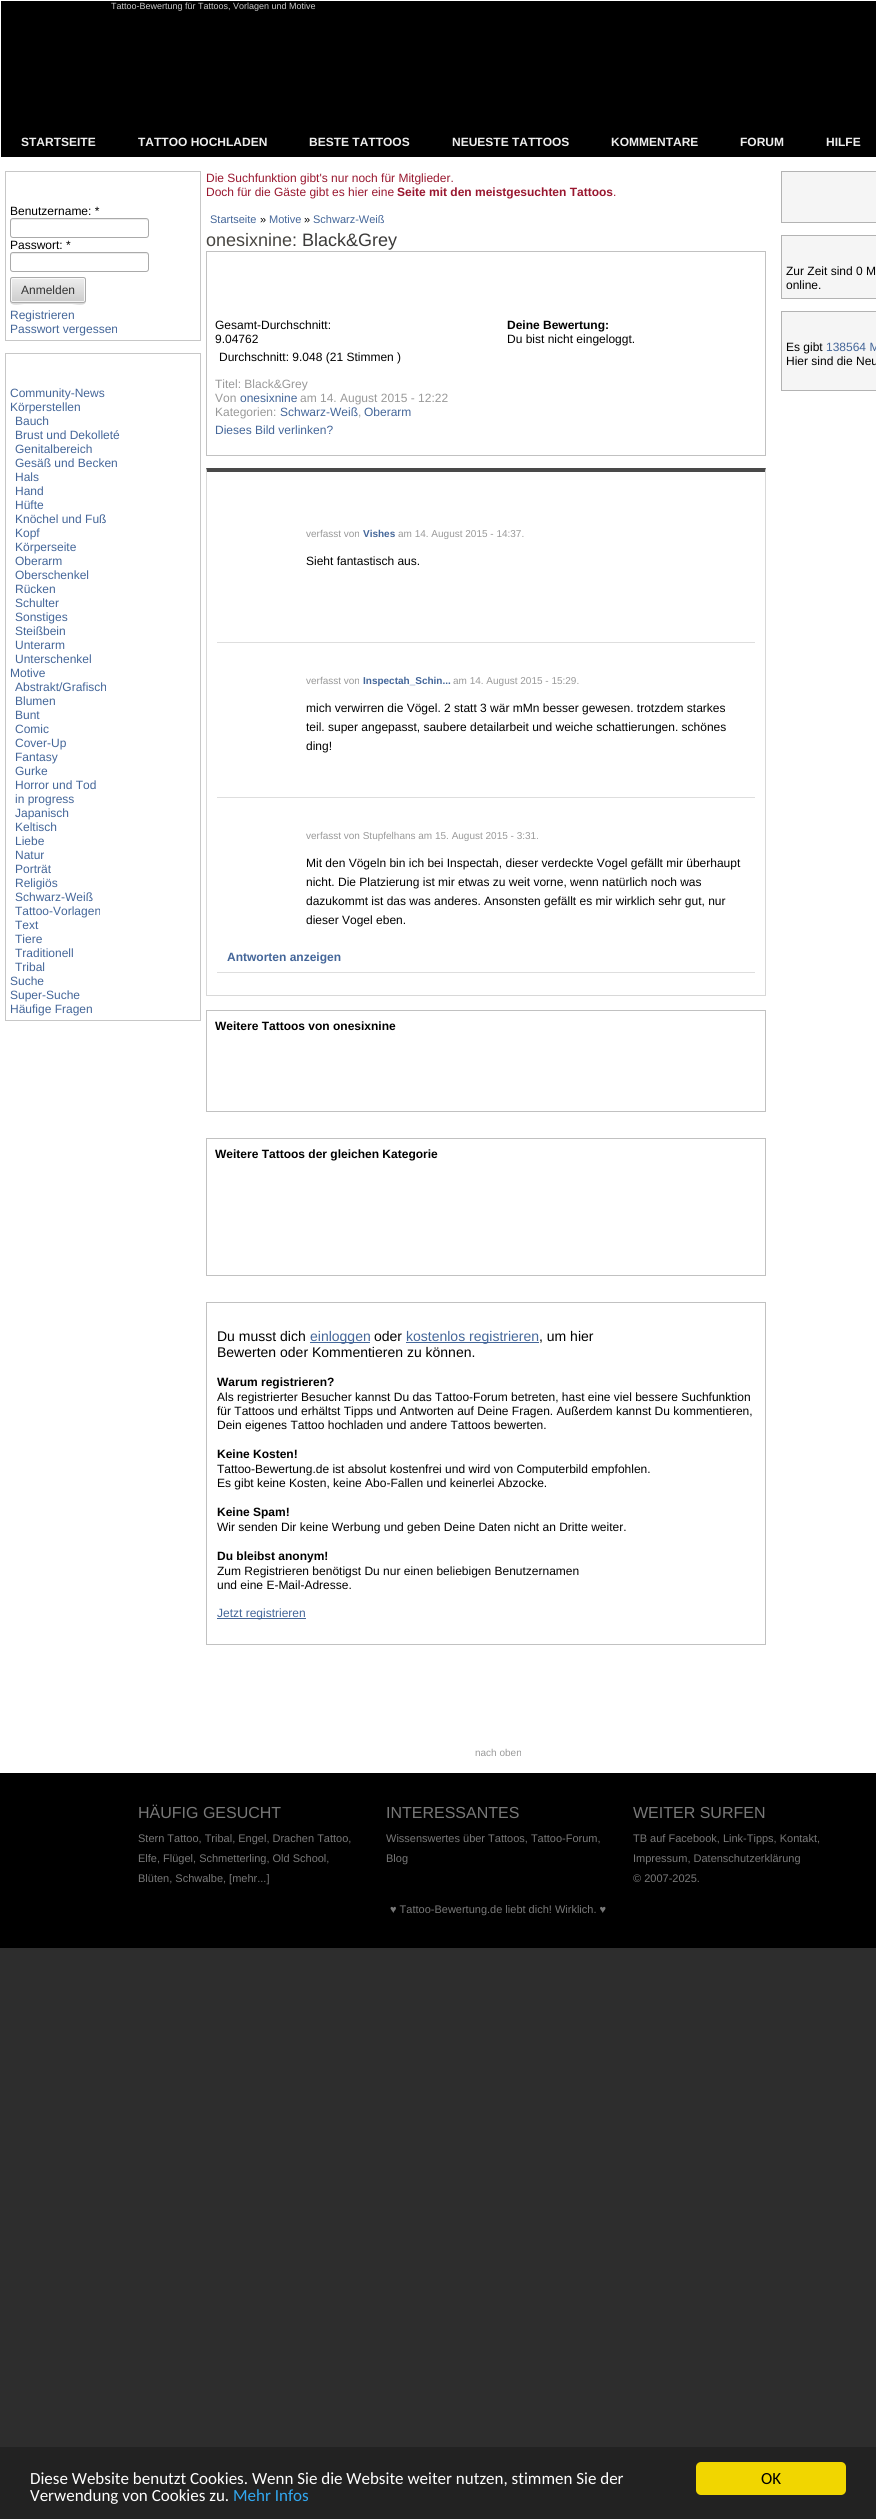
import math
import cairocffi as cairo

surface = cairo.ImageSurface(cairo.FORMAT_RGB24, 876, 2519)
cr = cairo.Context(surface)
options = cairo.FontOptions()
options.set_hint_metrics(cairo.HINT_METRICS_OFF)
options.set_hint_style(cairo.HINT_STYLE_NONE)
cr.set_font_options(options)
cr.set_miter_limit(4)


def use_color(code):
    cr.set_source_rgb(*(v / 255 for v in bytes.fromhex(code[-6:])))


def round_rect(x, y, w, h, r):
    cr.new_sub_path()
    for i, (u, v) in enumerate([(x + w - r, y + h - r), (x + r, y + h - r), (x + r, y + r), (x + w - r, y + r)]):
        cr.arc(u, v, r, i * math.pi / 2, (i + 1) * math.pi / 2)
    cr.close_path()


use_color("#2d2d2d")
cr.paint()
use_color("#ffffff")
cr.rectangle(0, 0, 876, 1773)
cr.fill()
use_color("#000000")
cr.rectangle(1, 1, 875, 156)
cr.fill()
cr.select_font_face("Liberation Sans")
cr.set_font_size(9)
use_color("#cbcbcb")
cr.move_to(111, 9)
cr.show_text("Tattoo-Bewertung für Tattoos, Vorlagen und Motive")
cr.select_font_face("Liberation Sans", cairo.FONT_SLANT_NORMAL, cairo.FONT_WEIGHT_BOLD)
cr.set_font_size(12)
use_color("#eeeeee")
cr.move_to(21, 146)
cr.show_text("STARTSEITE")
cr.move_to(138, 146)
cr.show_text("TATTOO HOCHLADEN")
cr.move_to(309, 146)
cr.show_text("BESTE TATTOOS")
cr.move_to(452, 146)
cr.show_text("NEUESTE TATTOOS")
cr.move_to(611, 146)
cr.show_text("KOMMENTARE")
cr.move_to(740, 146)
cr.show_text("FORUM")
cr.move_to(826, 146)
cr.show_text("HILFE")
cr.rectangle(5.5, 171.5, 195, 169)
use_color("#c7c7c7")
cr.set_line_width(1)
cr.stroke()
cr.select_font_face("Liberation Sans")
use_color("#000000")
cr.move_to(10, 215)
cr.show_text("Benutzername: *")
use_color("#ececec")
cr.new_path()
cr.move_to(13, 220)
cr.line_to(146, 220)
cr.line_to(148, 221)
cr.curve_to(148, 220, 147, 219, 146, 219)
cr.line_to(13, 219)
cr.curve_to(12, 219, 11, 220, 11, 221)
cr.line_to(11, 223)
cr.curve_to(11, 221, 12, 220, 13, 220)
cr.close_path()
cr.fill()
round_rect(10.5, 218.5, 138, 19, 2.5)
use_color("#aaaaaa")
cr.stroke()
use_color("#000000")
cr.move_to(10, 249)
cr.show_text("Passwort: *")
use_color("#ececec")
cr.new_path()
cr.move_to(13, 254)
cr.line_to(146, 254)
cr.line_to(148, 255)
cr.curve_to(148, 254, 147, 253, 146, 253)
cr.line_to(13, 253)
cr.curve_to(12, 253, 11, 254, 11, 255)
cr.line_to(11, 257)
cr.curve_to(11, 255, 12, 254, 13, 254)
cr.close_path()
cr.fill()
round_rect(10.5, 252.5, 138, 19, 2.5)
use_color("#aaaaaa")
cr.stroke()
use_color("#d9d9d9")
cr.new_path()
cr.move_to(10, 301)
cr.curve_to(10, 307, 21, 304, 24, 304)
cr.line_to(72, 304)
cr.curve_to(75, 304, 86, 307, 86, 301)
cr.curve_to(86, 302, 85, 303, 84, 303)
cr.line_to(12, 303)
cr.curve_to(11, 303, 10, 302, 10, 301)
cr.close_path()
cr.fill()
cr.save()
round_rect(10, 277, 76, 26, 2.5)
cr.clip()
gradient = cairo.LinearGradient(48, 278, 48, 302)
gradient.add_color_stop_rgba(0, 0.933, 0.933, 0.933, 1)
gradient.add_color_stop_rgba(1, 0.8, 0.8, 0.8, 1)
cr.set_source(gradient)
cr.rectangle(10, 278, 76, 24)
cr.fill()
cr.restore()
round_rect(11.5, 278.5, 73, 23, 1)
cr.set_source_rgba(1, 1, 1, 0.8)
cr.stroke()
round_rect(10.5, 277.5, 75, 25, 2)
use_color("#aaaaaa")
cr.stroke()
use_color("#333333")
cr.move_to(21, 294)
cr.show_text("Anmelden")
use_color("#446699")
cr.move_to(10, 319)
cr.show_text("Registrieren")
cr.move_to(10, 333)
cr.show_text("Passwort vergessen")
cr.rectangle(5.5, 353.5, 195, 667)
use_color("#c7c7c7")
cr.stroke()
use_color("#446699")
cr.move_to(10, 397)
cr.show_text("Community-News")
cr.move_to(10, 411)
cr.show_text("Körperstellen")
cr.move_to(15, 425)
cr.show_text("Bauch")
cr.move_to(15, 439)
cr.show_text("Brust und Dekolleté")
cr.move_to(15, 453)
cr.show_text("Genitalbereich")
cr.move_to(15, 467)
cr.show_text("Gesäß und Becken")
cr.move_to(15, 481)
cr.show_text("Hals")
cr.move_to(15, 495)
cr.show_text("Hand")
cr.move_to(15, 509)
cr.show_text("Hüfte")
cr.move_to(15, 523)
cr.show_text("Knöchel und Fuß")
cr.move_to(15, 537)
cr.show_text("Kopf")
cr.move_to(15, 551)
cr.show_text("Körperseite")
cr.move_to(15, 565)
cr.show_text("Oberarm")
cr.move_to(15, 579)
cr.show_text("Oberschenkel")
cr.move_to(15, 593)
cr.show_text("Rücken")
cr.move_to(15, 607)
cr.show_text("Schulter")
cr.move_to(15, 621)
cr.show_text("Sonstiges")
cr.move_to(15, 635)
cr.show_text("Steißbein")
cr.move_to(15, 649)
cr.show_text("Unterarm")
cr.move_to(15, 663)
cr.show_text("Unterschenkel")
cr.move_to(10, 677)
cr.show_text("Motive")
cr.move_to(15, 691)
cr.show_text("Abstrakt/Grafisch")
cr.move_to(15, 705)
cr.show_text("Blumen")
cr.move_to(15, 719)
cr.show_text("Bunt")
cr.move_to(15, 733)
cr.show_text("Comic")
cr.move_to(15, 747)
cr.show_text("Cover-Up")
cr.move_to(15, 761)
cr.show_text("Fantasy")
cr.move_to(15, 775)
cr.show_text("Gurke")
cr.move_to(15, 789)
cr.show_text("Horror und Tod")
cr.move_to(15, 803)
cr.show_text("in progress")
cr.move_to(15, 817)
cr.show_text("Japanisch")
cr.move_to(15, 831)
cr.show_text("Keltisch")
cr.move_to(15, 845)
cr.show_text("Liebe")
cr.move_to(15, 859)
cr.show_text("Natur")
cr.move_to(15, 873)
cr.show_text("Porträt")
cr.move_to(15, 887)
cr.show_text("Religiös")
cr.move_to(15, 901)
cr.show_text("Schwarz-Weiß")
cr.move_to(15, 915)
cr.show_text("Tattoo-Vorlagen")
cr.move_to(15, 929)
cr.show_text("Text")
cr.move_to(15, 943)
cr.show_text("Tiere")
cr.move_to(15, 957)
cr.show_text("Traditionell")
cr.move_to(15, 971)
cr.show_text("Tribal")
cr.move_to(10, 985)
cr.show_text("Suche")
cr.move_to(10, 999)
cr.show_text("Super-Suche")
cr.move_to(10, 1013)
cr.show_text("Häufige Fragen")
use_color("#99172f")
cr.move_to(206, 182)
cr.show_text("Die Suchfunktion gibt's nur noch für Mitglieder.")
cr.move_to(206, 196)
cr.show_text("Doch für die Gäste gibt es hier eine")
cr.select_font_face("Liberation Sans", cairo.FONT_SLANT_NORMAL, cairo.FONT_WEIGHT_BOLD)
cr.move_to(397, 196)
cr.show_text("Seite mit den meistgesuchten Tattoos")
cr.select_font_face("Liberation Sans")
cr.move_to(613, 196)
cr.show_text(".")
cr.set_font_size(11)
use_color("#446699")
cr.move_to(210, 223)
cr.show_text("Startseite")
use_color("#000000")
cr.move_to(260, 223)
cr.show_text("»")
use_color("#446699")
cr.move_to(269, 223)
cr.show_text("Motive")
use_color("#000000")
cr.move_to(304, 223)
cr.show_text("»")
use_color("#446699")
cr.move_to(313, 223)
cr.show_text("Schwarz-Weiß")
cr.set_font_size(18)
use_color("#484642")
cr.move_to(206, 246)
cr.show_text("onesixnine")
use_color("#3c3b3a")
cr.move_to(292, 246)
cr.show_text(": Black&Grey")
cr.rectangle(206.5, 251.5, 559, 204)
use_color("#c1c1c1")
cr.stroke()
cr.set_font_size(12)
use_color("#000000")
cr.move_to(215, 329)
cr.show_text("Gesamt-Durchschnitt:")
cr.move_to(215, 343)
cr.show_text("9.04762")
cr.move_to(219, 361)
cr.show_text("Durchschnitt: 9.048 (21 Stimmen )")
cr.select_font_face("Liberation Sans", cairo.FONT_SLANT_NORMAL, cairo.FONT_WEIGHT_BOLD)
cr.move_to(507, 329)
cr.show_text("Deine Bewertung:")
cr.select_font_face("Liberation Sans")
cr.move_to(507, 343)
cr.show_text("Du bist nicht eingeloggt.")
use_color("#999999")
cr.move_to(215, 388)
cr.show_text("Titel: Black&Grey")
cr.move_to(215, 402)
cr.show_text("Von")
use_color("#446699")
cr.move_to(240, 402)
cr.show_text("onesixnine")
use_color("#999999")
cr.move_to(300, 402)
cr.show_text("am 14. August 2015 - 12:22")
cr.move_to(215, 416)
cr.show_text("Kategorien:")
use_color("#446699")
cr.move_to(280, 416)
cr.show_text("Schwarz-Weiß")
use_color("#999999")
cr.move_to(358, 416)
cr.show_text(",")
use_color("#446699")
cr.move_to(364, 416)
cr.show_text("Oberarm")
cr.move_to(215, 434)
cr.show_text("Dieses Bild verlinken?")
use_color("#494949")
cr.new_path()
cr.move_to(206, 468)
cr.line_to(766, 468)
cr.line_to(765, 472)
cr.line_to(207, 472)
cr.close_path()
cr.fill()
use_color("#d8d8d8")
cr.new_path()
cr.move_to(766, 468)
cr.line_to(766, 996)
cr.line_to(765, 995)
cr.line_to(765, 472)
cr.close_path()
cr.fill()
cr.rectangle(206, 995, 560, 1)
cr.fill()
cr.new_path()
cr.move_to(206, 996)
cr.line_to(206, 468)
cr.line_to(207, 472)
cr.line_to(207, 995)
cr.close_path()
cr.fill()
use_color("#dedede")
cr.rectangle(217, 642, 538, 1)
cr.fill()
cr.set_font_size(10)
use_color("#999999")
cr.move_to(306, 537)
cr.show_text("verfasst von")
cr.select_font_face("Liberation Sans", cairo.FONT_SLANT_NORMAL, cairo.FONT_WEIGHT_BOLD)
use_color("#446699")
cr.move_to(363, 537)
cr.show_text("Vishes")
cr.select_font_face("Liberation Sans")
use_color("#999999")
cr.move_to(398, 537)
cr.show_text("am 14. August 2015 - 14:37.")
cr.set_font_size(12)
use_color("#000000")
cr.move_to(306, 565)
cr.show_text("Sieht fantastisch aus.")
use_color("#dedede")
cr.rectangle(217, 797, 538, 1)
cr.fill()
cr.set_font_size(10)
use_color("#999999")
cr.move_to(306, 684)
cr.show_text("verfasst von")
cr.select_font_face("Liberation Sans", cairo.FONT_SLANT_NORMAL, cairo.FONT_WEIGHT_BOLD)
use_color("#446699")
cr.move_to(363, 684)
cr.show_text("Inspectah_Schin...")
cr.select_font_face("Liberation Sans")
use_color("#999999")
cr.move_to(453, 684)
cr.show_text("am 14. August 2015 - 15:29.")
cr.set_font_size(12)
use_color("#000000")
cr.move_to(306, 712)
cr.show_text("mich verwirren die Vögel. 2 statt 3 wär mMn besser gewesen. trotzdem starkes")
cr.move_to(306, 731)
cr.show_text("teil. super angepasst, saubere detailarbeit und weiche schattierungen. schönes")
cr.move_to(306, 750)
cr.show_text("ding!")
use_color("#dedede")
cr.rectangle(217, 972, 538, 1)
cr.fill()
cr.set_font_size(10)
use_color("#999999")
cr.move_to(306, 839)
cr.show_text("verfasst von Stupfelhans am 15. August 2015 - 3:31.")
cr.set_font_size(12)
use_color("#000000")
cr.move_to(306, 867)
cr.show_text("Mit den Vögeln bin ich bei Inspectah, dieser verdeckte Vogel gefällt mir überhaupt")
cr.move_to(306, 886)
cr.show_text("nicht. Die Platzierung ist mir etwas zu weit vorne, wenn natürlich noch was")
cr.move_to(306, 905)
cr.show_text("dazukommt ist das was anderes. Ansonsten gefällt es mir wirklich sehr gut, nur")
cr.move_to(306, 924)
cr.show_text("dieser Vogel eben.")
cr.select_font_face("Liberation Sans", cairo.FONT_SLANT_NORMAL, cairo.FONT_WEIGHT_BOLD)
use_color("#446699")
cr.move_to(227, 961)
cr.show_text("Antworten anzeigen")
cr.rectangle(206.5, 1010.5, 559, 101)
use_color("#c1c1c1")
cr.stroke()
use_color("#000000")
cr.move_to(215, 1030)
cr.show_text("Weitere Tattoos von onesixnine")
cr.rectangle(206.5, 1138.5, 559, 137)
use_color("#c1c1c1")
cr.stroke()
use_color("#000000")
cr.move_to(215, 1158)
cr.show_text("Weitere Tattoos der gleichen Kategorie")
cr.rectangle(206.5, 1302.5, 559, 342)
use_color("#c1c1c1")
cr.stroke()
cr.select_font_face("Liberation Sans")
cr.set_font_size(14)
use_color("#000000")
cr.move_to(217, 1341)
cr.show_text("Du musst dich")
use_color("#446699")
cr.rectangle(310, 1342, 60, 1)
cr.fill()
cr.move_to(310, 1341)
cr.show_text("einloggen")
use_color("#000000")
cr.move_to(374, 1341)
cr.show_text("oder")
use_color("#446699")
cr.rectangle(406, 1342, 133, 1)
cr.fill()
cr.move_to(406, 1341)
cr.show_text("kostenlos registrieren")
use_color("#000000")
cr.move_to(539, 1341)
cr.show_text(", um hier")
cr.move_to(217, 1357)
cr.show_text("Bewerten oder Kommentieren zu können.")
cr.select_font_face("Liberation Sans", cairo.FONT_SLANT_NORMAL, cairo.FONT_WEIGHT_BOLD)
cr.set_font_size(12)
cr.move_to(217, 1386)
cr.show_text("Warum registrieren?")
cr.select_font_face("Liberation Sans")
cr.move_to(217, 1401)
cr.show_text("Als registrierter Besucher kannst Du das Tattoo-Forum betreten, hast eine viel bessere Suchfunktion")
cr.move_to(217, 1415)
cr.show_text("für Tattoos und erhältst Tipps und Antworten auf Deine Fragen. Außerdem kannst Du kommentieren,")
cr.move_to(217, 1429)
cr.show_text("Dein eigenes Tattoo hochladen und andere Tattoos bewerten.")
cr.select_font_face("Liberation Sans", cairo.FONT_SLANT_NORMAL, cairo.FONT_WEIGHT_BOLD)
cr.move_to(217, 1458)
cr.show_text("Keine Kosten!")
cr.select_font_face("Liberation Sans")
cr.move_to(217, 1473)
cr.show_text("Tattoo-Bewertung.de ist absolut kostenfrei und wird von Computerbild empfohlen.")
cr.move_to(217, 1487)
cr.show_text("Es gibt keine Kosten, keine Abo-Fallen und keinerlei Abzocke.")
cr.select_font_face("Liberation Sans", cairo.FONT_SLANT_NORMAL, cairo.FONT_WEIGHT_BOLD)
cr.move_to(217, 1516)
cr.show_text("Keine Spam!")
cr.select_font_face("Liberation Sans")
cr.move_to(217, 1531)
cr.show_text("Wir senden Dir keine Werbung und geben Deine Daten nicht an Dritte weiter.")
cr.select_font_face("Liberation Sans", cairo.FONT_SLANT_NORMAL, cairo.FONT_WEIGHT_BOLD)
cr.move_to(217, 1560)
cr.show_text("Du bleibst anonym!")
cr.select_font_face("Liberation Sans")
cr.move_to(217, 1575)
cr.show_text("Zum Registrieren benötigst Du nur einen beliebigen Benutzernamen")
cr.move_to(217, 1589)
cr.show_text("und eine E-Mail-Adresse.")
use_color("#446699")
cr.rectangle(217, 1618, 89, 1)
cr.fill()
cr.move_to(217, 1617)
cr.show_text("Jetzt registrieren")
use_color("#f5f5f5")
cr.rectangle(781.5, 171.5, 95, 51)
cr.fill_preserve()
use_color("#b3b3b3")
cr.stroke()
use_color("#f5f5f5")
cr.rectangle(781.5, 235.5, 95, 63)
cr.fill_preserve()
use_color("#b3b3b3")
cr.stroke()
use_color("#000000")
cr.move_to(786, 275)
cr.show_text("Zur Zeit sind 0 M")
cr.move_to(786, 289)
cr.show_text("online.")
use_color("#f5f5f5")
cr.rectangle(781.5, 311.5, 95, 79)
cr.fill_preserve()
use_color("#b3b3b3")
cr.stroke()
use_color("#000000")
cr.move_to(786, 351)
cr.show_text("Es gibt")
use_color("#446699")
cr.move_to(826, 351)
cr.show_text("138564 M")
use_color("#000000")
cr.move_to(786, 365)
cr.show_text("Hier sind die Neu")
cr.set_font_size(10)
use_color("#999999")
cr.move_to(475, 1756)
cr.show_text("nach oben")
use_color("#000000")
cr.rectangle(0, 1773, 876, 175)
cr.fill()
cr.set_font_size(16)
use_color("#787878")
cr.move_to(138, 1818)
cr.show_text("HÄUFIG GESUCHT")
cr.set_font_size(11)
cr.move_to(138, 1842)
cr.show_text("Stern Tattoo, Tribal, Engel, Drachen Tattoo,")
cr.move_to(138, 1862)
cr.show_text("Elfe, Flügel, Schmetterling, Old School,")
cr.move_to(138, 1882)
cr.show_text("Blüten, Schwalbe, [mehr...]")
cr.set_font_size(16)
cr.move_to(386, 1818)
cr.show_text("INTERESSANTES")
cr.set_font_size(11)
cr.move_to(386, 1842)
cr.show_text("Wissenswertes über Tattoos, Tattoo-Forum,")
cr.move_to(386, 1862)
cr.show_text("Blog")
cr.set_font_size(16)
cr.move_to(633, 1818)
cr.show_text("WEITER SURFEN")
cr.set_font_size(11)
cr.move_to(633, 1842)
cr.show_text("TB auf Facebook, Link-Tipps, Kontakt,")
cr.move_to(633, 1862)
cr.show_text("Impressum, Datenschutzerklärung")
cr.move_to(633, 1882)
cr.show_text("© 2007-2025.")
cr.move_to(390, 1913)
cr.show_text("♥ Tattoo-Bewertung.de liebt dich! Wirklich. ♥")
use_color("#222222")
cr.rectangle(0, 2447, 876, 72)
cr.fill()
cr.select_font_face("Carlito")
cr.set_font_size(17)
use_color("#ffffff")
cr.move_to(30, 2484)
cr.show_text("Diese Website benutzt Cookies. Wenn Sie die Website weiter nutzen, stimmen Sie der")
cr.move_to(30, 2501)
cr.show_text("Verwendung von Cookies zu.")
use_color("#31a8f0")
cr.move_to(233, 2501)
cr.show_text("Mehr Infos")
use_color("#f1d600")
round_rect(696, 2462, 150, 33, 5)
cr.fill()
use_color("#000000")
cr.move_to(761, 2484)
cr.show_text("OK")
surface.write_to_png("result.png")
